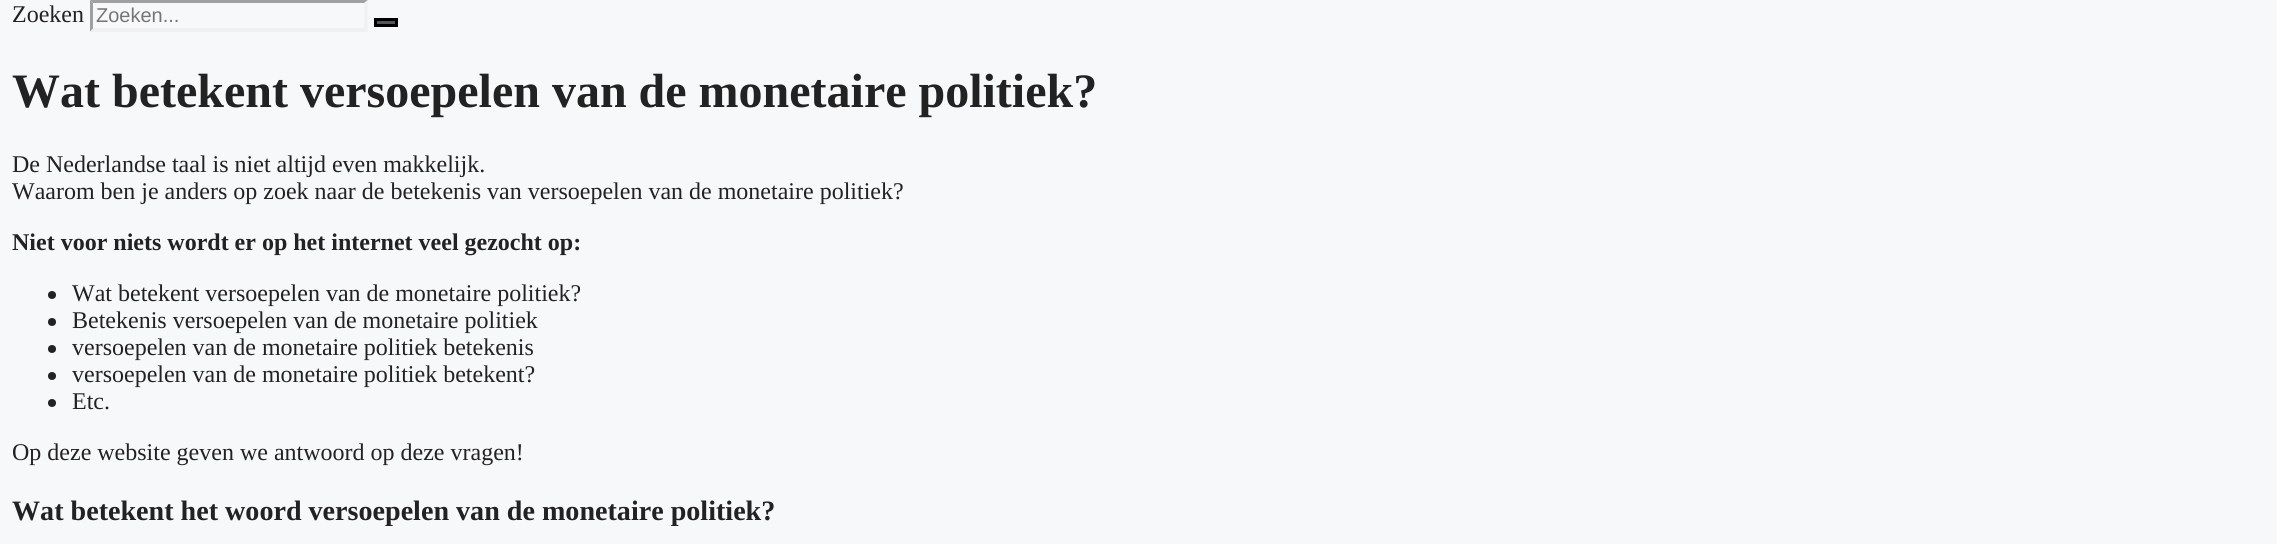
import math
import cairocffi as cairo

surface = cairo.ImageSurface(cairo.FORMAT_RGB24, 2277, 544)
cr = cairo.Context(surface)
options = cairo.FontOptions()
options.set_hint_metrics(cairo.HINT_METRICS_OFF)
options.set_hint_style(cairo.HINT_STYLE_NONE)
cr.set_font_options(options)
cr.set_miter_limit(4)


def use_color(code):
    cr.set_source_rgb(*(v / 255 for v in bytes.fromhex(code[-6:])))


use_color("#f7f8f9")
cr.paint()
cr.select_font_face("Liberation Serif")
cr.set_font_size(24)
use_color("#222222")
cr.move_to(12, 22)
cr.show_text("Zoeken")
use_color("#a0a0a0")
cr.new_path()
cr.move_to(90, 0)
cr.line_to(368, 0)
cr.line_to(364, 3)
cr.line_to(93, 3)
cr.close_path()
cr.fill()
use_color("#f0f0f0")
cr.new_path()
cr.move_to(367.5, 0)
cr.line_to(367.5, 31.5)
cr.line_to(364.5, 28.5)
cr.line_to(364.5, 3)
cr.close_path()
cr.fill()
cr.new_path()
cr.move_to(368, 32)
cr.line_to(90, 32)
cr.line_to(93, 28)
cr.line_to(364, 28)
cr.close_path()
cr.fill()
use_color("#a0a0a0")
cr.new_path()
cr.move_to(90, 31.5)
cr.line_to(90, 0)
cr.line_to(93, 3)
cr.line_to(93, 28.5)
cr.close_path()
cr.fill()
cr.select_font_face("Liberation Sans")
cr.set_font_size(20)
use_color("#757575")
cr.move_to(96, 22)
cr.show_text("Zoeken...")
use_color("#55555e")
cr.rectangle(375.5, 19.5, 21, 6)
cr.fill_preserve()
use_color("#000000")
cr.set_line_width(3)
cr.stroke()
cr.select_font_face("Liberation Serif", cairo.FONT_SLANT_NORMAL, cairo.FONT_WEIGHT_BOLD)
cr.set_font_size(48)
use_color("#222222")
cr.move_to(12, 107)
cr.show_text("Wat betekent versoepelen van de monetaire politiek?")
cr.select_font_face("Liberation Serif")
cr.set_font_size(24)
cr.move_to(12, 172)
cr.show_text("De Nederlandse taal is niet altijd even makkelijk.")
cr.move_to(12, 199)
cr.show_text("Waarom ben je anders op zoek naar de betekenis van versoepelen van de monetaire politiek?")
cr.select_font_face("Liberation Serif", cairo.FONT_SLANT_NORMAL, cairo.FONT_WEIGHT_BOLD)
cr.move_to(12, 250)
cr.show_text("Niet voor niets wordt er op het internet veel gezocht op:")
cr.new_path()
cr.arc(52, 295, 4, 0, 2 * math.pi)
cr.fill()
cr.select_font_face("Liberation Serif")
cr.move_to(72, 301)
cr.show_text("Wat betekent versoepelen van de monetaire politiek?")
cr.new_path()
cr.arc(52, 322, 4, 0, 2 * math.pi)
cr.fill()
cr.move_to(72, 328)
cr.show_text("Betekenis versoepelen van de monetaire politiek")
cr.new_path()
cr.arc(52, 349, 4, 0, 2 * math.pi)
cr.fill()
cr.move_to(72, 355)
cr.show_text("versoepelen van de monetaire politiek betekenis")
cr.new_path()
cr.arc(52, 376, 4, 0, 2 * math.pi)
cr.fill()
cr.move_to(72, 382)
cr.show_text("versoepelen van de monetaire politiek betekent?")
cr.new_path()
cr.arc(52, 403, 4, 0, 2 * math.pi)
cr.fill()
cr.move_to(72, 409)
cr.show_text("Etc.")
cr.move_to(12, 460)
cr.show_text("Op deze website geven we antwoord op deze vragen!")
cr.select_font_face("Liberation Serif", cairo.FONT_SLANT_NORMAL, cairo.FONT_WEIGHT_BOLD)
cr.set_font_size(28.1)
cr.move_to(12, 520)
cr.show_text("Wat betekent het woord versoepelen van de monetaire politiek?")
surface.write_to_png("result.png")
